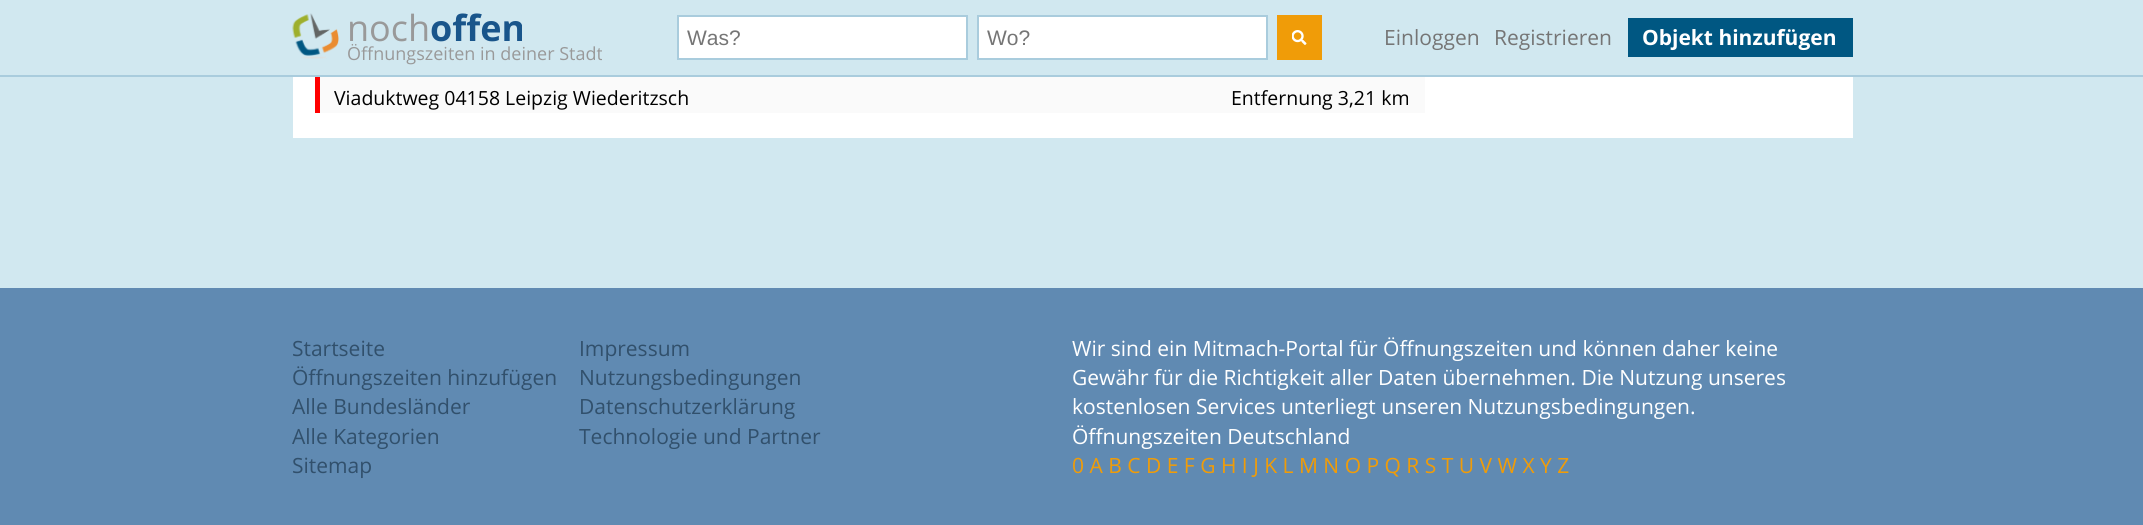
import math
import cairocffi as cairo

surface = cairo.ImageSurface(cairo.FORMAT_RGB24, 2143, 525)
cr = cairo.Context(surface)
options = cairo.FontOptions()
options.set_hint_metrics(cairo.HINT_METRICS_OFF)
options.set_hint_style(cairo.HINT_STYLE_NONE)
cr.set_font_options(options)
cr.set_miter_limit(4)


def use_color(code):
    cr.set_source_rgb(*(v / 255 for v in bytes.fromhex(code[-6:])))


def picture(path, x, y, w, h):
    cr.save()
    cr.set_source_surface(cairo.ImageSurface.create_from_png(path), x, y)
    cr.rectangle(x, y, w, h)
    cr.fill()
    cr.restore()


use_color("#d1e8f0")
cr.paint()
use_color("#a9ccdd")
cr.rectangle(0, 75, 2143, 2)
cr.fill()
picture("img1.png", 292, 13, 47, 46)
cr.select_font_face("Open Sans")
cr.set_font_size(36)
use_color("#999999")
cr.move_to(347, 41)
cr.show_text("noch")
cr.select_font_face("Open Sans", cairo.FONT_SLANT_NORMAL, cairo.FONT_WEIGHT_BOLD)
use_color("#19558b")
cr.move_to(430, 41)
cr.show_text("offen")
cr.select_font_face("Open Sans")
cr.set_font_size(18)
use_color("#999999")
cr.move_to(347, 60)
cr.show_text("Öffnungszeiten in deiner Stadt")
use_color("#ffffff")
cr.rectangle(678, 16, 289, 43)
cr.fill_preserve()
use_color("#a9ccdd")
cr.stroke()
cr.select_font_face("Liberation Sans")
cr.set_font_size(21)
use_color("#757575")
cr.move_to(687, 45)
cr.show_text("Was?")
use_color("#ffffff")
cr.rectangle(978, 16, 289, 43)
cr.fill_preserve()
use_color("#a9ccdd")
cr.stroke()
use_color("#757575")
cr.move_to(987, 45)
cr.show_text("Wo?")
use_color("#f09c08")
cr.rectangle(1277, 15, 45, 45)
cr.fill()
picture("img2.png", 1292, 30, 15, 15)
cr.select_font_face("Open Sans")
use_color("#757575")
cr.move_to(1384, 45)
cr.show_text("Einloggen")
cr.move_to(1494, 45)
cr.show_text("Registrieren")
use_color("#005782")
cr.rectangle(1628, 18, 225, 39)
cr.fill()
cr.select_font_face("Open Sans", cairo.FONT_SLANT_NORMAL, cairo.FONT_WEIGHT_BOLD)
use_color("#ffffff")
cr.move_to(1642, 45)
cr.show_text("Objekt hinzufügen")
cr.rectangle(293, 77, 1560, 61)
cr.fill()
use_color("#fafafa")
cr.rectangle(320, 77, 1105, 36)
cr.fill()
use_color("#ff0000")
cr.rectangle(315, 77, 5, 36)
cr.fill()
cr.select_font_face("Open Sans")
cr.set_font_size(19.5)
use_color("#000000")
cr.move_to(334, 105)
cr.show_text("Viaduktweg 04158 Leipzig Wiederitzsch")
cr.move_to(1231, 105)
cr.show_text("Entfernung 3,21 km")
use_color("#608ab2")
cr.rectangle(0, 288, 2143, 237)
cr.fill()
cr.set_font_size(21)
use_color("#31506c")
cr.move_to(292, 356)
cr.show_text("Startseite")
cr.move_to(292, 385)
cr.show_text("Öffnungszeiten hinzufügen")
cr.move_to(292, 414)
cr.show_text("Alle Bundesländer")
cr.move_to(292, 444)
cr.show_text("Alle Kategorien")
cr.move_to(292, 473)
cr.show_text("Sitemap")
cr.move_to(579, 356)
cr.show_text("Impressum")
cr.move_to(579, 385)
cr.show_text("Nutzungsbedingungen")
cr.move_to(579, 414)
cr.show_text("Datenschutzerklärung")
cr.move_to(579, 444)
cr.show_text("Technologie und Partner")
use_color("#ffffff")
cr.move_to(1072, 356)
cr.show_text("Wir sind ein Mitmach-Portal für Öffnungszeiten und können daher keine")
cr.move_to(1072, 385)
cr.show_text("Gewähr für die Richtigkeit aller Daten übernehmen. Die Nutzung unseres")
cr.move_to(1072, 414)
cr.show_text("kostenlosen Services unterliegt unseren Nutzungsbedingungen.")
cr.move_to(1072, 444)
cr.show_text("Öffnungszeiten Deutschland")
use_color("#f09c08")
cr.move_to(1072, 473)
cr.show_text("0 A B C D E F G H I J K L M N O P Q R S T U V W X Y Z")
surface.write_to_png("result.png")
